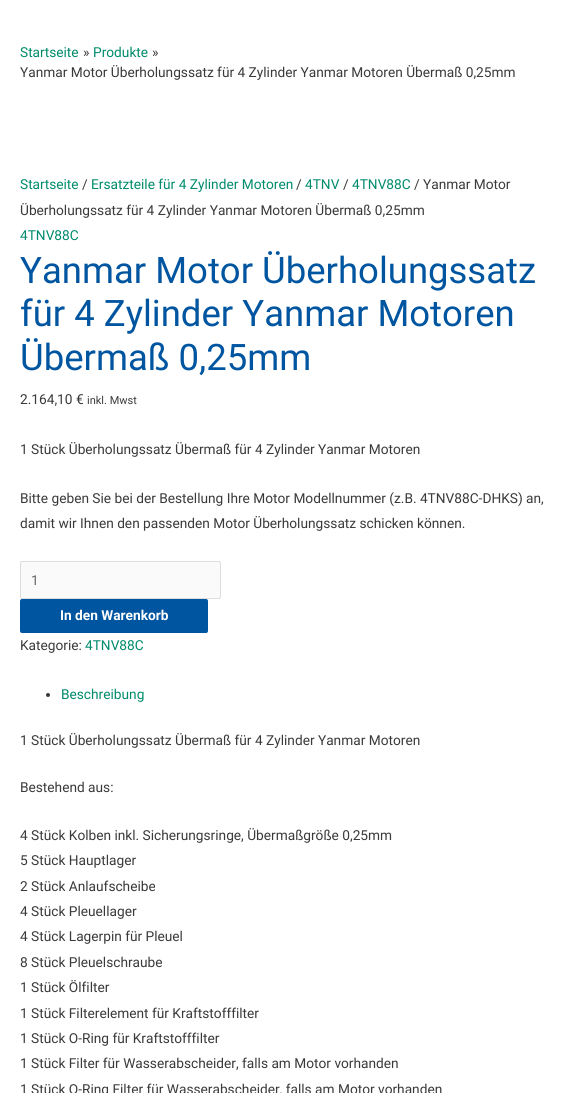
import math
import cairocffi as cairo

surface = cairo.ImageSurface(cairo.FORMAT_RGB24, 565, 1093)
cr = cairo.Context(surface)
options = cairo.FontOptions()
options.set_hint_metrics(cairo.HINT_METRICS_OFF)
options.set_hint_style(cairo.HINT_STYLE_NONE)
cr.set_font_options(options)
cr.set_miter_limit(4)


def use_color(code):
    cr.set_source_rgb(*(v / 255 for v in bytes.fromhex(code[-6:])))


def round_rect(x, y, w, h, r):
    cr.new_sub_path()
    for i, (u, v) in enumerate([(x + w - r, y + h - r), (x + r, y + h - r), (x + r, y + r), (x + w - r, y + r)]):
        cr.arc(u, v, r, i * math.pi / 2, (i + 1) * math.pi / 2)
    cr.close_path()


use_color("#ffffff")
cr.paint()
cr.select_font_face("Roboto")
cr.set_font_size(13.7)
use_color("#008b6c")
cr.move_to(20, 57)
cr.show_text("Startseite")
use_color("#3a3a3a")
cr.move_to(83, 57)
cr.show_text("»")
use_color("#008b6c")
cr.move_to(93, 57)
cr.show_text("Produkte")
use_color("#3a3a3a")
cr.move_to(152, 57)
cr.show_text("»")
cr.move_to(20, 77)
cr.show_text("Yanmar Motor Überholungssatz für 4 Zylinder Yanmar Motoren Übermaß 0,25mm")
use_color("#008b6c")
cr.move_to(20, 189)
cr.show_text("Startseite")
use_color("#3a3a3a")
cr.move_to(82, 189)
cr.show_text("/")
use_color("#008b6c")
cr.move_to(91, 189)
cr.show_text("Ersatzteile für 4 Zylinder Motoren")
use_color("#3a3a3a")
cr.move_to(296, 189)
cr.show_text("/")
use_color("#008b6c")
cr.move_to(305, 189)
cr.show_text("4TNV")
use_color("#3a3a3a")
cr.move_to(343, 189)
cr.show_text("/")
use_color("#008b6c")
cr.move_to(352, 189)
cr.show_text("4TNV88C")
use_color("#3a3a3a")
cr.move_to(414, 189)
cr.show_text("/ Yanmar Motor")
cr.move_to(20, 215)
cr.show_text("Überholungssatz für 4 Zylinder Yanmar Motoren Übermaß 0,25mm")
use_color("#008b6c")
cr.move_to(20, 240)
cr.show_text("4TNV88C")
cr.set_font_size(36.5)
use_color("#0055a0")
cr.move_to(20, 283)
cr.show_text("Yanmar Motor Überholungssatz")
cr.move_to(20, 326)
cr.show_text("für 4 Zylinder Yanmar Motoren")
cr.move_to(20, 370)
cr.show_text("Übermaß 0,25mm")
cr.set_font_size(13.7)
use_color("#3a3a3a")
cr.move_to(20, 404)
cr.show_text("2.164,10 €")
cr.set_font_size(11)
cr.move_to(87, 404)
cr.show_text("inkl. Mwst")
cr.set_font_size(13.7)
cr.move_to(20, 454)
cr.show_text("1 Stück Überholungssatz Übermaß für 4 Zylinder Yanmar Motoren")
cr.move_to(20, 503)
cr.show_text("Bitte geben Sie bei der Bestellung Ihre Motor Modellnummer (z.B. 4TNV88C-DHKS) an,")
cr.move_to(20, 528)
cr.show_text("damit wir Ihnen den passenden Motor Überholungssatz schicken können.")
use_color("#fafafa")
round_rect(20.5, 561.5, 200, 37, 1.5)
cr.fill_preserve()
use_color("#dddddd")
cr.set_line_width(1)
cr.stroke()
use_color("#666666")
cr.move_to(31, 585)
cr.show_text("1")
use_color("#0055a0")
round_rect(20, 599, 188, 34, 2)
cr.fill()
cr.select_font_face("Roboto", cairo.FONT_SLANT_NORMAL, cairo.FONT_WEIGHT_BOLD)
use_color("#ffffff")
cr.move_to(60, 620)
cr.show_text("In den Warenkorb")
cr.select_font_face("Roboto")
use_color("#3a3a3a")
cr.move_to(20, 650)
cr.show_text("Kategorie:")
use_color("#008b6c")
cr.move_to(85, 650)
cr.show_text("4TNV88C")
use_color("#3a3a3a")
cr.new_path()
cr.arc(48, 695, 2, 0, 2 * math.pi)
cr.fill()
use_color("#008b6c")
cr.move_to(61, 699)
cr.show_text("Beschreibung")
use_color("#3a3a3a")
cr.move_to(20, 745)
cr.show_text("1 Stück Überholungssatz Übermaß für 4 Zylinder Yanmar Motoren")
cr.move_to(20, 792)
cr.show_text("Bestehend aus:")
cr.move_to(20, 840)
cr.show_text("4 Stück Kolben inkl. Sicherungsringe, Übermaßgröße 0,25mm")
cr.move_to(20, 865)
cr.show_text("5 Stück Hauptlager")
cr.move_to(20, 891)
cr.show_text("2 Stück Anlaufscheibe")
cr.move_to(20, 916)
cr.show_text("4 Stück Pleuellager")
cr.move_to(20, 941)
cr.show_text("4 Stück Lagerpin für Pleuel")
cr.move_to(20, 967)
cr.show_text("8 Stück Pleuelschraube")
cr.move_to(20, 992)
cr.show_text("1 Stück Ölfilter")
cr.move_to(20, 1018)
cr.show_text("1 Stück Filterelement für Kraftstofffilter")
cr.move_to(20, 1043)
cr.show_text("1 Stück O-Ring für Kraftstofffilter")
cr.move_to(20, 1068)
cr.show_text("1 Stück Filter für Wasserabscheider, falls am Motor vorhanden")
cr.move_to(20, 1094)
cr.show_text("1 Stück O-Ring Filter für Wasserabscheider, falls am Motor vorhanden")
surface.write_to_png("result.png")
